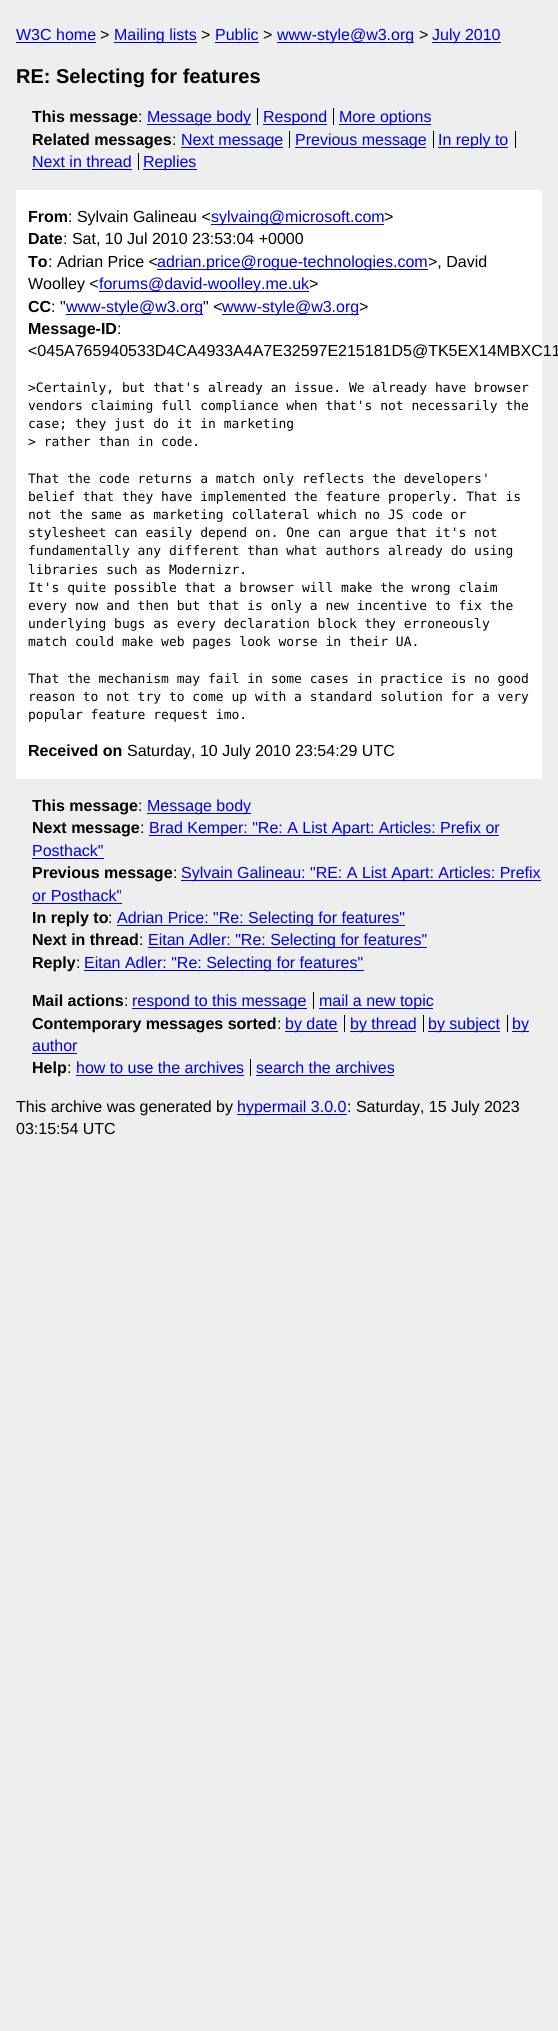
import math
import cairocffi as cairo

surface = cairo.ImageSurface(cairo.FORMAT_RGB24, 558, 2031)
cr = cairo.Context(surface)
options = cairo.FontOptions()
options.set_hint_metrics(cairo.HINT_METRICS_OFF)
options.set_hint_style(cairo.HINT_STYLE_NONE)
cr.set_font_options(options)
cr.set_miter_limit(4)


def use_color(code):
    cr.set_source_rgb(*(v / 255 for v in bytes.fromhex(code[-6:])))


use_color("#eeeeee")
cr.paint()
cr.select_font_face("Liberation Sans")
cr.set_font_size(16)
use_color("#0000ee")
cr.move_to(16, 40)
cr.show_text("W3C home")
cr.rectangle(16, 42, 80, 1)
cr.fill()
use_color("#000000")
cr.move_to(100, 40)
cr.show_text(">")
use_color("#0000ee")
cr.rectangle(114, 42, 83, 1)
cr.fill()
cr.move_to(114, 40)
cr.show_text("Mailing lists")
use_color("#000000")
cr.move_to(201, 40)
cr.show_text(">")
use_color("#0000ee")
cr.move_to(215, 40)
cr.show_text("Public")
cr.rectangle(215, 42, 44, 1)
cr.fill()
use_color("#000000")
cr.move_to(263, 40)
cr.show_text(">")
use_color("#0000ee")
cr.rectangle(277, 42, 137, 1)
cr.fill()
cr.move_to(277, 40)
cr.show_text("www-style@w3.org")
use_color("#000000")
cr.move_to(419, 40)
cr.show_text(">")
use_color("#0000ee")
cr.rectangle(432, 42, 69, 1)
cr.fill()
cr.move_to(432, 40)
cr.show_text("July 2010")
cr.select_font_face("Liberation Sans", cairo.FONT_SLANT_NORMAL, cairo.FONT_WEIGHT_BOLD)
cr.set_font_size(20)
use_color("#000000")
cr.move_to(16, 83)
cr.show_text("RE: Selecting for features")
cr.set_font_size(16)
cr.move_to(32, 122)
cr.show_text("This message")
cr.select_font_face("Liberation Sans")
cr.move_to(138, 122)
cr.show_text(":")
use_color("#0000ee")
cr.rectangle(147, 124, 104, 1)
cr.fill()
cr.move_to(147, 122)
cr.show_text("Message body")
cr.rectangle(263, 124, 64, 1)
cr.fill()
cr.move_to(263, 122)
cr.show_text("Respond")
use_color("#000000")
cr.rectangle(257, 108, 1, 17)
cr.fill()
use_color("#0000ee")
cr.rectangle(339, 124, 92, 1)
cr.fill()
cr.move_to(339, 122)
cr.show_text("More options")
use_color("#000000")
cr.rectangle(333, 108, 1, 17)
cr.fill()
cr.select_font_face("Liberation Sans", cairo.FONT_SLANT_NORMAL, cairo.FONT_WEIGHT_BOLD)
cr.move_to(32, 145)
cr.show_text("Related messages")
cr.select_font_face("Liberation Sans")
cr.move_to(172, 145)
cr.show_text(":")
use_color("#0000ee")
cr.rectangle(181, 147, 102, 1)
cr.fill()
cr.move_to(181, 145)
cr.show_text("Next message")
cr.rectangle(295, 147, 131, 1)
cr.fill()
cr.move_to(295, 145)
cr.show_text("Previous message")
use_color("#000000")
cr.rectangle(289, 131, 1, 17)
cr.fill()
use_color("#0000ee")
cr.rectangle(438, 147, 70, 1)
cr.fill()
cr.move_to(438, 145)
cr.show_text("In reply to")
use_color("#000000")
cr.rectangle(433, 131, 1, 17)
cr.fill()
cr.rectangle(515, 131, 1, 17)
cr.fill()
use_color("#0000ee")
cr.move_to(32, 167)
cr.show_text("Next in thread")
use_color("#000000")
cr.rectangle(138, 153, 1, 17)
cr.fill()
use_color("#0000ee")
cr.rectangle(32, 169, 100, 1)
cr.fill()
cr.rectangle(143, 169, 54, 1)
cr.fill()
cr.move_to(143, 167)
cr.show_text("Replies")
use_color("#ffffff")
cr.rectangle(16, 190, 526, 589)
cr.fill()
cr.select_font_face("Liberation Sans", cairo.FONT_SLANT_NORMAL, cairo.FONT_WEIGHT_BOLD)
use_color("#000000")
cr.move_to(28, 222)
cr.show_text("From")
cr.select_font_face("Liberation Sans")
cr.move_to(68, 222)
cr.show_text(": Sylvain Galineau <")
use_color("#0000ee")
cr.rectangle(211, 224, 173, 1)
cr.fill()
cr.move_to(211, 222)
cr.show_text("sylvaing@microsoft.com")
use_color("#000000")
cr.move_to(384, 222)
cr.show_text(">")
cr.select_font_face("Liberation Sans", cairo.FONT_SLANT_NORMAL, cairo.FONT_WEIGHT_BOLD)
cr.move_to(28, 244)
cr.show_text("Date")
cr.select_font_face("Liberation Sans")
cr.move_to(63, 244)
cr.show_text(": Sat, 10 Jul 2010 23:53:04 +0000")
cr.select_font_face("Liberation Sans", cairo.FONT_SLANT_NORMAL, cairo.FONT_WEIGHT_BOLD)
cr.move_to(28, 267)
cr.show_text("To")
cr.select_font_face("Liberation Sans")
cr.move_to(48, 267)
cr.show_text(": Adrian Price <")
use_color("#0000ee")
cr.rectangle(157, 269, 271, 1)
cr.fill()
cr.move_to(157, 267)
cr.show_text("adrian.price@rogue-technologies.com")
use_color("#000000")
cr.move_to(428, 267)
cr.show_text(">, David")
cr.move_to(28, 289)
cr.show_text("Woolley <")
use_color("#0000ee")
cr.rectangle(99, 291, 210, 1)
cr.fill()
cr.move_to(99, 289)
cr.show_text("forums@david-woolley.me.uk")
use_color("#000000")
cr.move_to(309, 289)
cr.show_text(">")
cr.select_font_face("Liberation Sans", cairo.FONT_SLANT_NORMAL, cairo.FONT_WEIGHT_BOLD)
cr.move_to(28, 312)
cr.show_text("CC")
cr.select_font_face("Liberation Sans")
cr.move_to(51, 312)
cr.show_text(": \"")
use_color("#0000ee")
cr.rectangle(66, 314, 137, 1)
cr.fill()
cr.move_to(66, 312)
cr.show_text("www-style@w3.org")
use_color("#000000")
cr.move_to(203, 312)
cr.show_text("\" <")
use_color("#0000ee")
cr.rectangle(222, 314, 137, 1)
cr.fill()
cr.move_to(222, 312)
cr.show_text("www-style@w3.org")
use_color("#000000")
cr.move_to(359, 312)
cr.show_text(">")
cr.select_font_face("Liberation Sans", cairo.FONT_SLANT_NORMAL, cairo.FONT_WEIGHT_BOLD)
cr.move_to(28, 334)
cr.show_text("Message-ID")
cr.select_font_face("Liberation Sans")
cr.move_to(117, 334)
cr.show_text(":")
cr.move_to(28, 356)
cr.show_text("<045A765940533D4CA4933A4A7E32597E215181D5@TK5EX14MBXC11")
cr.select_font_face("DejaVu Sans Mono")
cr.set_font_size(13)
cr.move_to(28, 392)
cr.show_text(">Certainly, but that's already an issue. We already have browser")
cr.move_to(28, 410)
cr.show_text("vendors claiming full compliance when that's not necessarily the")
cr.move_to(28, 428)
cr.show_text("case; they just do it in marketing")
cr.move_to(28, 446)
cr.show_text("> rather than in code.")
cr.move_to(28, 483)
cr.show_text("That the code returns a match only reflects the developers'")
cr.move_to(28, 501)
cr.show_text("belief that they have implemented the feature properly. That is")
cr.move_to(28, 519)
cr.show_text("not the same as marketing collateral which no JS code or")
cr.move_to(28, 537)
cr.show_text("stylesheet can easily depend on. One can argue that it's not")
cr.move_to(28, 555)
cr.show_text("fundamentally any different than what authors already do using")
cr.move_to(28, 574)
cr.show_text("libraries such as Modernizr.")
cr.move_to(28, 592)
cr.show_text("It's quite possible that a browser will make the wrong claim")
cr.move_to(28, 610)
cr.show_text("every now and then but that is only a new incentive to fix the")
cr.move_to(28, 628)
cr.show_text("underlying bugs as every declaration block they erroneously")
cr.move_to(28, 646)
cr.show_text("match could make web pages look worse in their UA.")
cr.move_to(28, 683)
cr.show_text("That the mechanism may fail in some cases in practice is no good")
cr.move_to(28, 701)
cr.show_text("reason to not try to come up with a standard solution for a very")
cr.move_to(28, 719)
cr.show_text("popular feature request imo.")
cr.select_font_face("Liberation Sans", cairo.FONT_SLANT_NORMAL, cairo.FONT_WEIGHT_BOLD)
cr.set_font_size(16)
cr.move_to(28, 756)
cr.show_text("Received on")
cr.select_font_face("Liberation Sans")
cr.move_to(127, 756)
cr.show_text("Saturday, 10 July 2010 23:54:29 UTC")
cr.select_font_face("Liberation Sans", cairo.FONT_SLANT_NORMAL, cairo.FONT_WEIGHT_BOLD)
cr.move_to(32, 811)
cr.show_text("This message")
cr.select_font_face("Liberation Sans")
cr.move_to(138, 811)
cr.show_text(":")
use_color("#0000ee")
cr.rectangle(147, 813, 104, 1)
cr.fill()
cr.move_to(147, 811)
cr.show_text("Message body")
cr.select_font_face("Liberation Sans", cairo.FONT_SLANT_NORMAL, cairo.FONT_WEIGHT_BOLD)
use_color("#000000")
cr.move_to(32, 833)
cr.show_text("Next message")
cr.select_font_face("Liberation Sans")
cr.move_to(140, 833)
cr.show_text(":")
use_color("#0000ee")
cr.rectangle(149, 835, 350, 1)
cr.fill()
cr.move_to(149, 833)
cr.show_text("Brad Kemper: \"Re: A List Apart: Articles: Prefix or")
cr.move_to(32, 856)
cr.show_text("Posthack\"")
cr.rectangle(32, 858, 72, 1)
cr.fill()
cr.select_font_face("Liberation Sans", cairo.FONT_SLANT_NORMAL, cairo.FONT_WEIGHT_BOLD)
use_color("#000000")
cr.move_to(32, 878)
cr.show_text("Previous message")
cr.select_font_face("Liberation Sans")
cr.move_to(173, 878)
cr.show_text(":")
use_color("#0000ee")
cr.rectangle(181, 880, 360, 1)
cr.fill()
cr.move_to(181, 878)
cr.show_text("Sylvain Galineau: \"RE: A List Apart: Articles: Prefix")
cr.move_to(32, 901)
cr.show_text("or Posthack\"")
cr.rectangle(32, 903, 90, 1)
cr.fill()
cr.select_font_face("Liberation Sans", cairo.FONT_SLANT_NORMAL, cairo.FONT_WEIGHT_BOLD)
use_color("#000000")
cr.move_to(32, 923)
cr.show_text("In reply to")
cr.select_font_face("Liberation Sans")
cr.move_to(108, 923)
cr.show_text(":")
use_color("#0000ee")
cr.rectangle(117, 925, 288, 1)
cr.fill()
cr.move_to(117, 923)
cr.show_text("Adrian Price: \"Re: Selecting for features\"")
cr.select_font_face("Liberation Sans", cairo.FONT_SLANT_NORMAL, cairo.FONT_WEIGHT_BOLD)
use_color("#000000")
cr.move_to(32, 945)
cr.show_text("Next in thread")
cr.select_font_face("Liberation Sans")
cr.move_to(139, 945)
cr.show_text(":")
use_color("#0000ee")
cr.rectangle(148, 947, 279, 1)
cr.fill()
cr.move_to(148, 945)
cr.show_text("Eitan Adler: \"Re: Selecting for features\"")
cr.select_font_face("Liberation Sans", cairo.FONT_SLANT_NORMAL, cairo.FONT_WEIGHT_BOLD)
use_color("#000000")
cr.move_to(32, 968)
cr.show_text("Reply")
cr.select_font_face("Liberation Sans")
cr.move_to(76, 968)
cr.show_text(":")
use_color("#0000ee")
cr.rectangle(84, 970, 280, 1)
cr.fill()
cr.move_to(84, 968)
cr.show_text("Eitan Adler: \"Re: Selecting for features\"")
cr.select_font_face("Liberation Sans", cairo.FONT_SLANT_NORMAL, cairo.FONT_WEIGHT_BOLD)
use_color("#000000")
cr.move_to(32, 1006)
cr.show_text("Mail actions")
cr.select_font_face("Liberation Sans")
cr.move_to(124, 1006)
cr.show_text(":")
use_color("#0000ee")
cr.rectangle(132, 1008, 175, 1)
cr.fill()
cr.move_to(132, 1006)
cr.show_text("respond to this message")
cr.rectangle(319, 1008, 114, 1)
cr.fill()
cr.move_to(319, 1006)
cr.show_text("mail a new topic")
use_color("#000000")
cr.rectangle(313, 992, 1, 17)
cr.fill()
cr.select_font_face("Liberation Sans", cairo.FONT_SLANT_NORMAL, cairo.FONT_WEIGHT_BOLD)
cr.move_to(32, 1029)
cr.show_text("Contemporary messages sorted")
cr.select_font_face("Liberation Sans")
cr.move_to(277, 1029)
cr.show_text(":")
use_color("#0000ee")
cr.rectangle(285, 1031, 53, 1)
cr.fill()
cr.move_to(285, 1029)
cr.show_text("by date")
cr.rectangle(350, 1031, 66, 1)
cr.fill()
cr.move_to(350, 1029)
cr.show_text("by thread")
use_color("#000000")
cr.rectangle(344, 1015, 1, 17)
cr.fill()
use_color("#0000ee")
cr.rectangle(428, 1031, 72, 1)
cr.fill()
cr.move_to(428, 1029)
cr.show_text("by subject")
use_color("#000000")
cr.rectangle(423, 1015, 1, 17)
cr.fill()
use_color("#0000ee")
cr.rectangle(512, 1031, 17, 1)
cr.fill()
cr.move_to(512, 1029)
cr.show_text("by")
use_color("#000000")
cr.rectangle(507, 1015, 1, 17)
cr.fill()
use_color("#0000ee")
cr.move_to(32, 1051)
cr.show_text("author")
cr.rectangle(32, 1053, 45, 1)
cr.fill()
cr.select_font_face("Liberation Sans", cairo.FONT_SLANT_NORMAL, cairo.FONT_WEIGHT_BOLD)
use_color("#000000")
cr.move_to(32, 1073)
cr.show_text("Help")
cr.select_font_face("Liberation Sans")
cr.move_to(67, 1073)
cr.show_text(":")
use_color("#0000ee")
cr.move_to(76, 1073)
cr.show_text("how to use the archives")
cr.rectangle(76, 1075, 168, 1)
cr.fill()
cr.move_to(256, 1073)
cr.show_text("search the archives")
use_color("#000000")
cr.rectangle(250, 1059, 1, 17)
cr.fill()
use_color("#0000ee")
cr.rectangle(256, 1075, 138, 1)
cr.fill()
use_color("#000000")
cr.move_to(16, 1112)
cr.show_text("This archive was generated by")
use_color("#0000ee")
cr.rectangle(237, 1114, 110, 1)
cr.fill()
cr.move_to(237, 1112)
cr.show_text("hypermail 3.0.0")
use_color("#000000")
cr.move_to(347, 1112)
cr.show_text(": Saturday, 15 July 2023")
cr.move_to(16, 1134)
cr.show_text("03:15:54 UTC")
surface.write_to_png("result.png")
